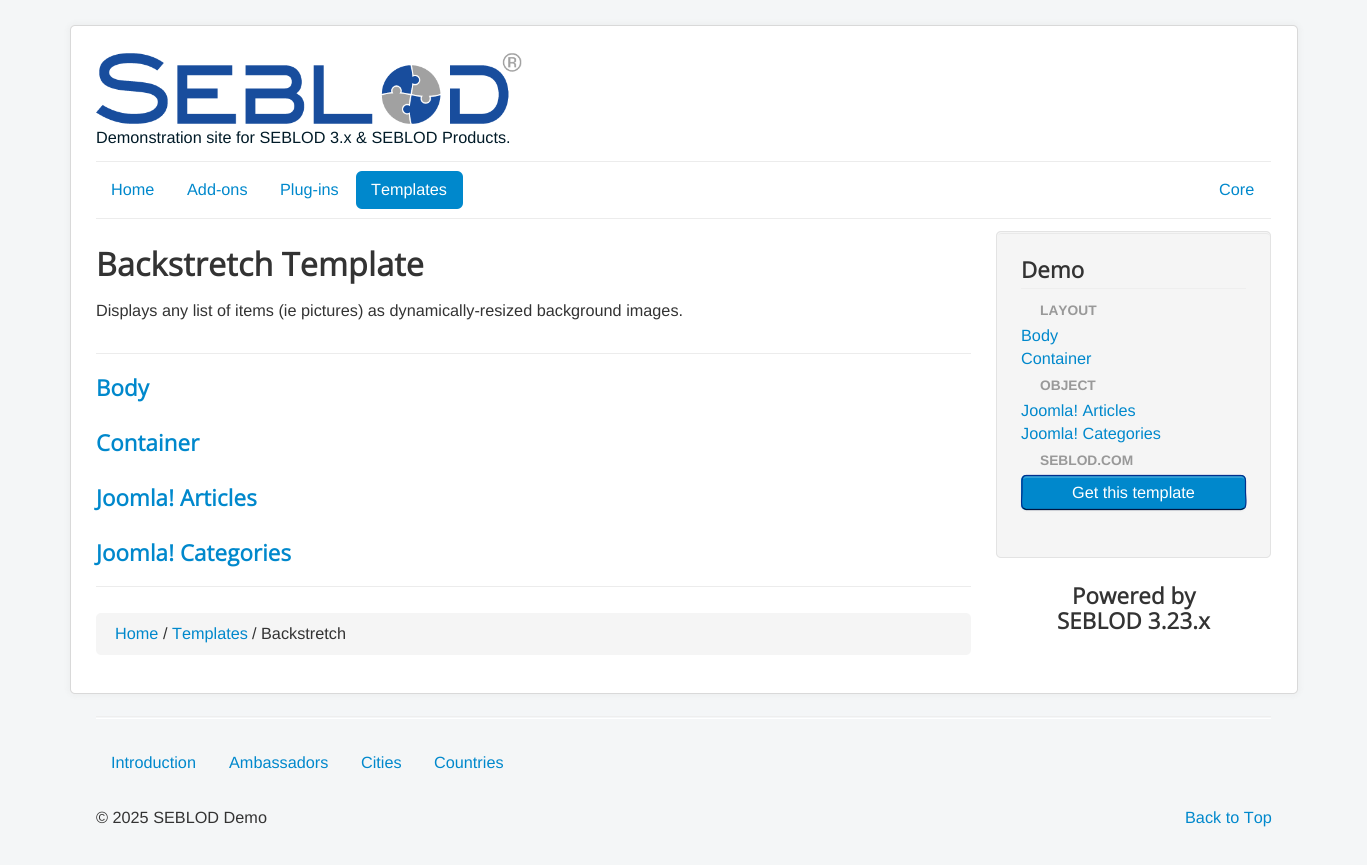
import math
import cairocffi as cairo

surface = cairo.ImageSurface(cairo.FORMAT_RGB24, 1367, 865)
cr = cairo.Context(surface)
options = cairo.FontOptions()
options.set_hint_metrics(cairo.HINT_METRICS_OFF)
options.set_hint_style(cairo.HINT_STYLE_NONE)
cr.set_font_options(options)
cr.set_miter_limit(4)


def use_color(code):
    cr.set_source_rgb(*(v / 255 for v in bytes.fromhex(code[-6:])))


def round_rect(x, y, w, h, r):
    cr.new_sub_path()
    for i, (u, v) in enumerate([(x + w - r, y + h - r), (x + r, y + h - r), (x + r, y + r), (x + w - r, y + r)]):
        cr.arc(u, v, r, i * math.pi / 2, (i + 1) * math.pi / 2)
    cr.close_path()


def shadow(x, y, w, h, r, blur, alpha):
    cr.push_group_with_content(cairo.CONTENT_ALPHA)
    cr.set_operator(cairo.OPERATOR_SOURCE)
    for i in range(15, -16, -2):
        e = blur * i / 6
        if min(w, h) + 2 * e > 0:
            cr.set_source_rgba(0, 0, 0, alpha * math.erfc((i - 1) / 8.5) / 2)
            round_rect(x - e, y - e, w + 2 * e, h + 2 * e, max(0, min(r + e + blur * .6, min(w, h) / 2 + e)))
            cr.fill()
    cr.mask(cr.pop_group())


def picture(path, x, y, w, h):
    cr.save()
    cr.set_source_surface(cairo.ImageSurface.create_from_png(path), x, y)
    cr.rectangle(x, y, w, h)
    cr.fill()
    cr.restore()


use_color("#f4f6f7")
cr.paint()
use_color("#000000")
shadow(70, 25, 1228, 669, 5, 4, 0.05)
use_color("#ffffff")
round_rect(70, 25, 1228, 669, 5)
cr.fill()
round_rect(70.5, 25.5, 1227, 668, 4.5)
cr.set_source_rgba(0, 0, 0, 0.15)
cr.set_line_width(1)
cr.stroke()
picture("img1.png", 96, 53, 426, 71)
cr.select_font_face("Liberation Sans")
cr.set_font_size(16.25)
use_color("#001a27")
cr.move_to(96, 143)
cr.show_text("Demonstration site for SEBLOD 3.x & SEBLOD Products.")
use_color("#ececec")
cr.rectangle(96, 161, 1175, 1)
cr.fill()
cr.rectangle(96, 218, 1175, 1)
cr.fill()
use_color("#0088cc")
cr.move_to(111, 195)
cr.show_text("Home")
cr.move_to(187, 195)
cr.show_text("Add-ons")
cr.move_to(280, 195)
cr.show_text("Plug-ins")
round_rect(356, 171, 107, 38, 6)
cr.fill()
use_color("#ffffff")
cr.move_to(371, 195)
cr.show_text("Templates")
use_color("#0088cc")
cr.move_to(1219, 195)
cr.show_text("Core")
cr.select_font_face("Open Sans", cairo.FONT_SLANT_NORMAL, cairo.FONT_WEIGHT_BOLD)
cr.set_font_size(32.5)
use_color("#333333")
cr.move_to(96, 276)
cr.show_text("Backstretch Template")
cr.select_font_face("Liberation Sans")
cr.set_font_size(16.25)
cr.move_to(96, 316)
cr.show_text("Displays any list of items (ie pictures) as dynamically-resized background images.")
use_color("#ececec")
cr.rectangle(96, 353, 875, 1)
cr.fill()
cr.rectangle(96, 586, 875, 1)
cr.fill()
cr.select_font_face("Open Sans", cairo.FONT_SLANT_NORMAL, cairo.FONT_WEIGHT_BOLD)
cr.set_font_size(22.5)
use_color("#0088cc")
cr.move_to(96, 396)
cr.show_text("Body")
cr.move_to(96, 451)
cr.show_text("Container")
cr.move_to(96, 506)
cr.show_text("Joomla! Articles")
cr.move_to(96, 561)
cr.show_text("Joomla! Categories")
use_color("#f5f5f5")
round_rect(96, 613, 875, 42, 5)
cr.fill()
cr.select_font_face("Liberation Sans")
cr.set_font_size(16.25)
use_color("#0088cc")
cr.move_to(115, 639)
cr.show_text("Home")
use_color("#333333")
cr.move_to(163, 639)
cr.show_text("/")
use_color("#0088cc")
cr.move_to(172, 639)
cr.show_text("Templates")
use_color("#333333")
cr.move_to(252, 639)
cr.show_text("/ Backstretch")
use_color("#f5f5f5")
round_rect(996, 231, 275, 327, 5)
cr.fill()
use_color("#e9e9e9")
cr.new_path()
cr.move_to(1001, 234)
cr.line_to(1266, 234)
cr.curve_to(1268, 234, 1270, 235, 1270, 238)
cr.curve_to(1270, 235, 1269, 233, 1266, 233)
cr.line_to(1002, 233)
cr.curve_to(999, 233, 998, 235, 998, 238)
cr.curve_to(998, 235, 999, 234, 1001, 234)
cr.close_path()
cr.fill()
round_rect(996.5, 231.5, 274, 326, 4.5)
use_color("#e3e3e3")
cr.stroke()
use_color("#eeeeee")
cr.rectangle(1021, 288, 225, 1)
cr.fill()
cr.select_font_face("Open Sans", cairo.FONT_SLANT_NORMAL, cairo.FONT_WEIGHT_BOLD)
cr.set_font_size(22.5)
use_color("#333333")
cr.move_to(1021, 278)
cr.show_text("Demo")
cr.select_font_face("Liberation Sans", cairo.FONT_SLANT_NORMAL, cairo.FONT_WEIGHT_BOLD)
cr.set_font_size(13.75)
use_color("#999999")
cr.move_to(1040, 315)
cr.show_text("LAYOUT")
cr.select_font_face("Liberation Sans")
cr.set_font_size(16.25)
use_color("#0088cc")
cr.move_to(1021, 341)
cr.show_text("Body")
cr.move_to(1021, 364)
cr.show_text("Container")
cr.select_font_face("Liberation Sans", cairo.FONT_SLANT_NORMAL, cairo.FONT_WEIGHT_BOLD)
cr.set_font_size(13.75)
use_color("#999999")
cr.move_to(1040, 390)
cr.show_text("OBJECT")
cr.select_font_face("Liberation Sans")
cr.set_font_size(16.25)
use_color("#0088cc")
cr.move_to(1021, 416)
cr.show_text("Joomla! Articles")
cr.move_to(1021, 439)
cr.show_text("Joomla! Categories")
cr.select_font_face("Liberation Sans", cairo.FONT_SLANT_NORMAL, cairo.FONT_WEIGHT_BOLD)
cr.set_font_size(13.75)
use_color("#999999")
cr.move_to(1040, 465)
cr.show_text("SEBLOD.COM")
use_color("#000000")
shadow(1021, 476, 225, 35, 5, 1, 0.05)
use_color("#0088cc")
round_rect(1021, 475, 225, 35, 5)
cr.fill()
use_color("#33a0d6")
cr.new_path()
cr.move_to(1026, 478)
cr.line_to(1241, 478)
cr.curve_to(1243, 478, 1245, 479, 1245, 481)
cr.line_to(1245, 480)
cr.curve_to(1245, 478, 1243, 476, 1241, 476)
cr.line_to(1027, 476)
cr.curve_to(1025, 476, 1024, 477, 1023, 479)
cr.close_path()
cr.fill()
cr.new_path()
cr.move_to(1244.5, 508)
cr.line_to(1241, 509.5)
cr.line_to(1026, 509.5)
cr.line_to(1023, 508)
use_color("#001641")
cr.set_line_width(1.2)
cr.stroke()
cr.new_path()
cr.move_to(1023, 508)
cr.curve_to(1020.5, 505.5, 1022, 495.5, 1022, 492.5)
cr.line_to(1022, 484)
cr.curve_to(1022, 481, 1021.5, 475.5, 1026, 475.5)
cr.line_to(1241, 475.5)
cr.curve_to(1246, 475.5, 1245.5, 481, 1245.5, 484)
cr.line_to(1245.5, 492.5)
cr.curve_to(1245.5, 495.5, 1247, 505.5, 1244.5, 508)
use_color("#002f8d")
cr.stroke()
cr.select_font_face("Liberation Sans")
cr.set_font_size(16.25)
use_color("#ffffff")
cr.move_to(1072, 498)
cr.show_text("Get this template")
cr.select_font_face("Open Sans", cairo.FONT_SLANT_NORMAL, cairo.FONT_WEIGHT_BOLD)
cr.set_font_size(22.5)
use_color("#333333")
cr.move_to(1072, 604)
cr.show_text("Powered by")
cr.move_to(1057, 629)
cr.show_text("SEBLOD 3.23.x")
use_color("#eeeeee")
cr.rectangle(96, 716, 1175, 1)
cr.fill()
use_color("#ffffff")
cr.rectangle(96, 718, 1175, 1)
cr.fill()
cr.select_font_face("Liberation Sans")
cr.set_font_size(16.25)
use_color("#0088cc")
cr.move_to(111, 768)
cr.show_text("Introduction")
cr.move_to(229, 768)
cr.show_text("Ambassadors")
cr.move_to(361, 768)
cr.show_text("Cities")
cr.move_to(434, 768)
cr.show_text("Countries")
use_color("#333333")
cr.move_to(96, 823)
cr.show_text("© 2025 SEBLOD Demo")
use_color("#0088cc")
cr.move_to(1185, 823)
cr.show_text("Back to Top")
surface.write_to_png("result.png")
